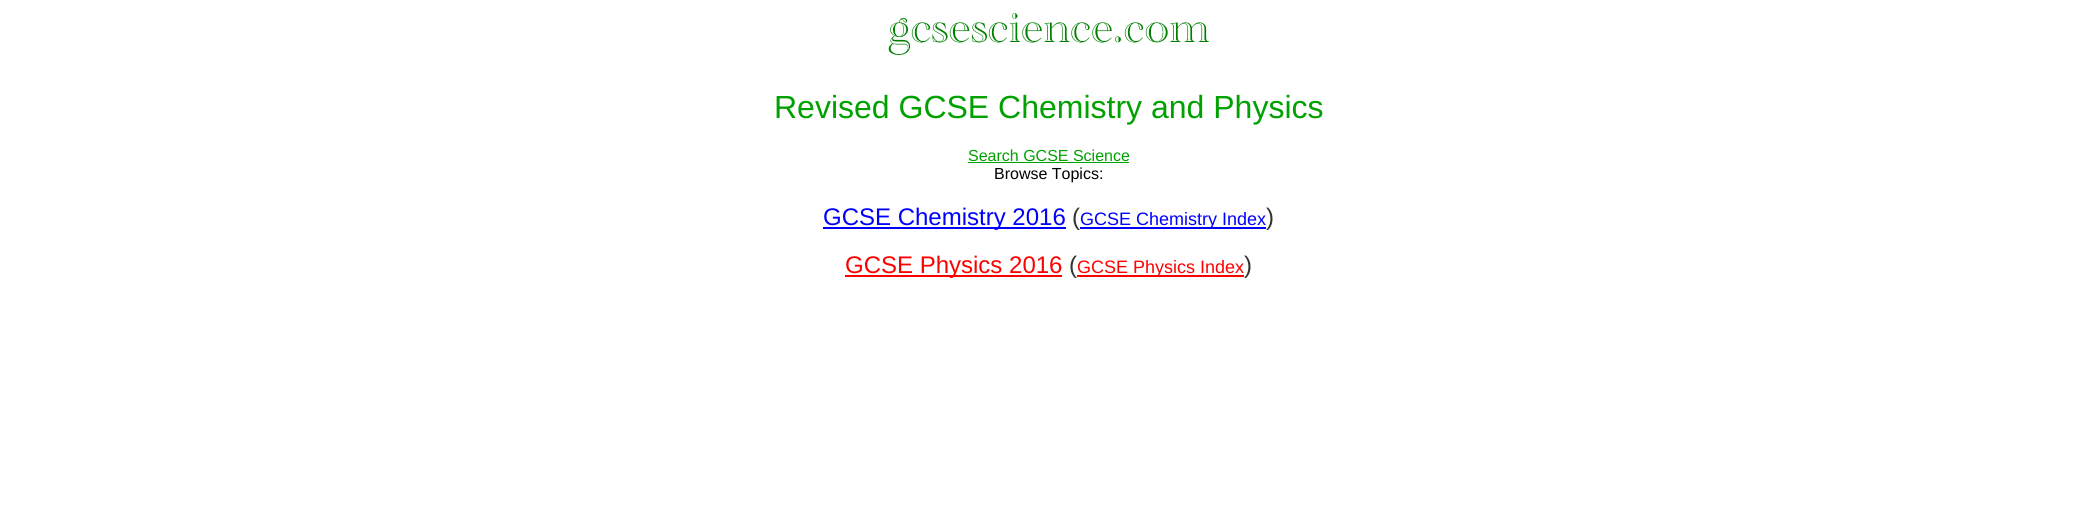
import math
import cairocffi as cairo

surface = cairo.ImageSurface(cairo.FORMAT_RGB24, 2097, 524)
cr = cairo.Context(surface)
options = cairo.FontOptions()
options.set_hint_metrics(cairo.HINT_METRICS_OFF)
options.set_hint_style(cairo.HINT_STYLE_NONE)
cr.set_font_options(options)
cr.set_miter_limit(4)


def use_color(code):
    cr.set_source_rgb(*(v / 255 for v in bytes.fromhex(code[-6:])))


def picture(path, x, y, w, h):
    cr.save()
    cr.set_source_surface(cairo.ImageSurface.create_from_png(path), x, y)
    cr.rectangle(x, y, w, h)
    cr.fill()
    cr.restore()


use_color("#ffffff")
cr.paint()
picture("img1.png", 888, 13, 321, 42)
cr.select_font_face("Liberation Sans")
cr.set_font_size(32)
use_color("#00a100")
cr.move_to(774, 118)
cr.show_text("Revised GCSE Chemistry and Physics")
cr.set_font_size(16)
cr.move_to(968, 161)
cr.show_text("Search GCSE Science")
cr.rectangle(968, 162, 161, 1)
cr.fill()
use_color("#000000")
cr.move_to(994, 179)
cr.show_text("Browse Topics:")
use_color("#0000ff")
cr.rectangle(823, 227, 243, 2)
cr.fill()
cr.set_font_size(24)
cr.move_to(823, 225)
cr.show_text("GCSE Chemistry 2016")
use_color("#333333")
cr.move_to(1072, 225)
cr.show_text("(")
use_color("#0000ff")
cr.rectangle(1080, 227, 186, 2)
cr.fill()
cr.set_font_size(18)
cr.move_to(1080, 225)
cr.show_text("GCSE Chemistry Index")
cr.set_font_size(24)
use_color("#333333")
cr.move_to(1266, 225)
cr.show_text(")")
use_color("#ff0000")
cr.rectangle(845, 275, 217, 2)
cr.fill()
cr.move_to(845, 273)
cr.show_text("GCSE Physics 2016")
use_color("#333333")
cr.move_to(1069, 273)
cr.show_text("(")
use_color("#ff0000")
cr.rectangle(1077, 275, 167, 2)
cr.fill()
cr.set_font_size(18)
cr.move_to(1077, 273)
cr.show_text("GCSE Physics Index")
cr.set_font_size(24)
use_color("#333333")
cr.move_to(1244, 273)
cr.show_text(")")
surface.write_to_png("result.png")
